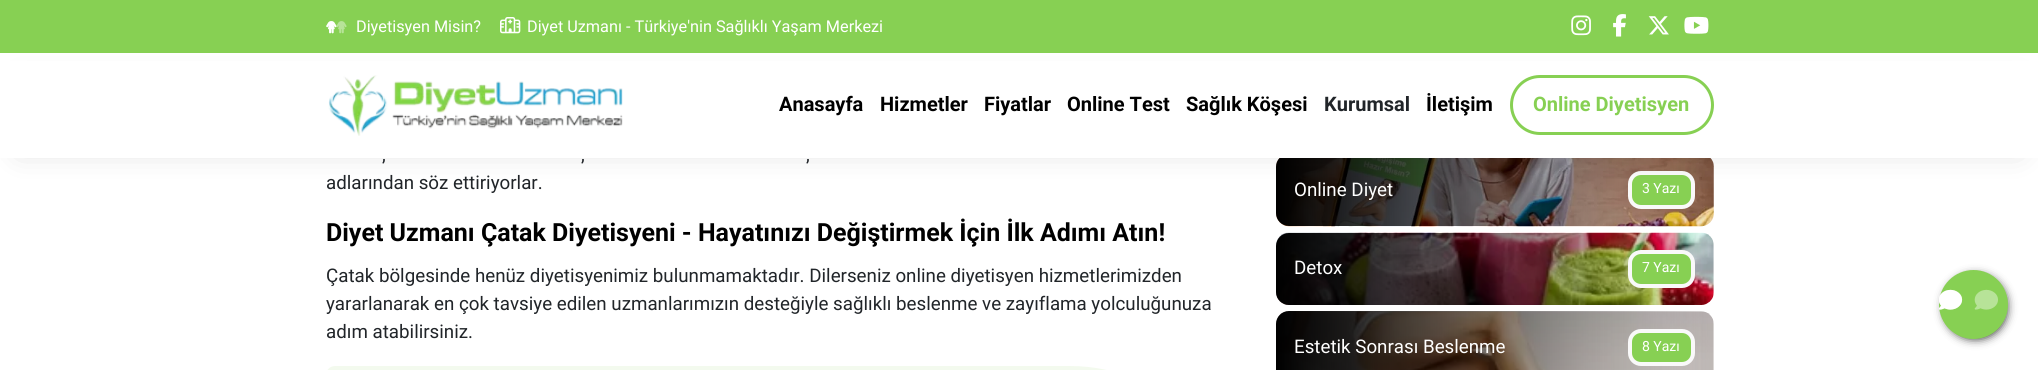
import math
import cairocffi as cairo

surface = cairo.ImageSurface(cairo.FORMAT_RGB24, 2038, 370)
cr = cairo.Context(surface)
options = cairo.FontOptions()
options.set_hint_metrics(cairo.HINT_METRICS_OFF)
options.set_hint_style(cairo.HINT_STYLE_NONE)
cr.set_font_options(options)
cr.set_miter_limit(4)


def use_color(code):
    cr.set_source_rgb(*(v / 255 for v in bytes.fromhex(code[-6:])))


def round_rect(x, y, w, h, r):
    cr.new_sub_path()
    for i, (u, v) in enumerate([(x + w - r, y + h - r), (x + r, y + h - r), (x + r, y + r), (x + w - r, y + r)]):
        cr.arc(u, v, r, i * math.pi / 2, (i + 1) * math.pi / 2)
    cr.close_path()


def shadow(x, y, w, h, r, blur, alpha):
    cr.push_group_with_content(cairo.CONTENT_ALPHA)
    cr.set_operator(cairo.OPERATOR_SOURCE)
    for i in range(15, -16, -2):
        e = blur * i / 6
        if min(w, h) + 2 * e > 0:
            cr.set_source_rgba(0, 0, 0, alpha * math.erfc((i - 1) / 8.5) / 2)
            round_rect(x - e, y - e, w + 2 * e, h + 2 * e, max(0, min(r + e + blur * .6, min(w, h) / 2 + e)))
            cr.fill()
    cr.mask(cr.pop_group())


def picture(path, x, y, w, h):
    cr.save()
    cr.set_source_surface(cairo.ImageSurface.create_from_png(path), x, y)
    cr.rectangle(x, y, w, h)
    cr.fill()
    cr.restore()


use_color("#ffffff")
cr.paint()
picture("img9.png", 1276, 158, 438, 69)
gradient = cairo.LinearGradient(1714, 190, 1276, 190)
gradient.add_color_stop_rgba(0, 0, 0, 0, 0)
gradient.add_color_stop_rgba(1, 0, 0, 0, 1)
cr.set_source(gradient)
round_rect(1276, 154, 438, 72, 13)
cr.fill()
use_color("#87d053")
round_rect(1630, 173, 63, 34, 11)
cr.fill_preserve()
use_color("#f9f9f9")
cr.set_line_width(4)
cr.stroke()
use_color("#000000")
shadow(19, 84, 2001, 67, 0, 15.5, 0.14)
use_color("#87d053")
cr.rectangle(0, 0, 2038, 53)
cr.fill()
picture("img1.png", 326, 21, 11, 13)
picture("img2.png", 326, 21, 21, 13)
cr.select_font_face("Roboto")
cr.set_font_size(16.25)
use_color("#ffffff")
cr.move_to(356, 32)
cr.show_text("Diyetisyen Misin?")
picture("img3.png", 500, 17, 21, 17)
cr.move_to(527, 32)
cr.show_text("Diyet Uzmanı - Türkiye'nin Sağlıklı Yaşam Merkezi")
picture("img4.png", 1571, 15, 20, 21)
picture("img5.png", 1613, 14, 13, 23)
picture("img6.png", 1648, 16, 21, 19)
picture("img7.png", 1684, 16, 25, 18)
cr.rectangle(0, 61, 2038, 97)
cr.fill()
picture("img8.png", 328, 75, 295, 61)
cr.select_font_face("Roboto", cairo.FONT_SLANT_NORMAL, cairo.FONT_WEIGHT_BOLD)
cr.set_font_size(20)
use_color("#000000")
cr.move_to(779, 111)
cr.show_text("Anasayfa")
cr.move_to(880, 111)
cr.show_text("Hizmetler")
cr.move_to(984, 111)
cr.show_text("Fiyatlar")
cr.move_to(1067, 111)
cr.show_text("Online Test")
cr.move_to(1186, 111)
cr.show_text("Sağlık Köşesi")
use_color("#212529")
cr.move_to(1324, 111)
cr.show_text("Kurumsal")
use_color("#000000")
cr.move_to(1426, 111)
cr.show_text("İletişim")
round_rect(1511.5, 76.5, 201, 57, 28.5)
use_color("#87d053")
cr.set_line_width(3)
cr.stroke()
cr.move_to(1533, 111)
cr.show_text("Online Diyetisyen")
cr.select_font_face("Roboto")
cr.set_font_size(18.75)
use_color("#212529")
cr.move_to(382, 161)
cr.show_text(",")
cr.move_to(581, 161)
cr.show_text(",")
cr.move_to(806, 161)
cr.show_text(",")
cr.move_to(326, 189)
cr.show_text("adlarından söz ettiriyorlar.")
cr.select_font_face("Roboto", cairo.FONT_SLANT_NORMAL, cairo.FONT_WEIGHT_BOLD)
cr.set_font_size(25)
use_color("#000000")
cr.move_to(326, 241)
cr.show_text("Diyet Uzmanı Çatak Diyetisyeni - Hayatınızı Değiştirmek İçin İlk Adımı Atın!")
cr.select_font_face("Roboto")
cr.set_font_size(18.75)
use_color("#212529")
cr.move_to(326, 282)
cr.show_text("Çatak bölgesinde henüz diyetisyenimiz bulunmamaktadır. Dilerseniz online diyetisyen hizmetlerimizden")
cr.move_to(326, 310)
cr.show_text("yararlanarak en çok tavsiye edilen uzmanlarımızın desteğiyle sağlıklı beslenme ve zayıflama yolculuğunuza")
cr.move_to(326, 338)
cr.show_text("adım atabilirsiniz.")
use_color("#f3faee")
cr.new_path()
cr.move_to(335, 366)
cr.line_to(1070, 366)
cr.curve_to(1163.5, 366, 1239, 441.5, 1239, 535)
cr.line_to(1239, 370)
cr.curve_to(1239, 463.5, 1163.5, 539, 1070, 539)
cr.line_to(335, 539)
cr.curve_to(330, 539, 326, 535, 326, 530)
cr.line_to(326, 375)
cr.curve_to(326, 370, 330, 366, 335, 366)
cr.close_path()
cr.fill()
use_color("#ffffff")
cr.move_to(1294, 196)
cr.show_text("Online Diyet")
cr.set_font_size(14)
cr.move_to(1642, 193)
cr.show_text("3 Yazı")
picture("img10.png", 1276, 232, 438, 73)
gradient = cairo.LinearGradient(1714, 269, 1276, 269)
gradient.add_color_stop_rgba(0, 0, 0, 0, 0)
gradient.add_color_stop_rgba(1, 0, 0, 0, 1)
cr.set_source(gradient)
round_rect(1276, 233, 438, 72, 13)
cr.fill()
cr.set_font_size(18.75)
use_color("#ffffff")
cr.move_to(1294, 274)
cr.show_text("Detox")
use_color("#87d053")
round_rect(1630, 252, 63, 34, 11)
cr.fill_preserve()
use_color("#f9f9f9")
cr.set_line_width(4)
cr.stroke()
cr.set_font_size(14)
use_color("#ffffff")
cr.move_to(1642, 272)
cr.show_text("7 Yazı")
picture("img11.png", 1276, 311, 438, 59)
gradient = cairo.LinearGradient(1714, 347, 1276, 348)
gradient.add_color_stop_rgba(0, 0, 0, 0, 0)
gradient.add_color_stop_rgba(1, 0, 0, 0, 1)
cr.set_source(gradient)
round_rect(1276, 311, 438, 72, 13)
cr.fill()
cr.set_font_size(18.75)
use_color("#ffffff")
cr.move_to(1294, 353)
cr.show_text("Estetik Sonrası Beslenme")
use_color("#87d053")
round_rect(1630, 331, 63, 33, 11)
cr.fill_preserve()
use_color("#f9f9f9")
cr.stroke()
cr.set_font_size(14)
use_color("#ffffff")
cr.move_to(1642, 351)
cr.show_text("8 Yazı")
use_color("#000000")
shadow(1945, 276, 61, 62, 30.5, 5, 1)
use_color("#87d053")
cr.arc(1973.5, 304.5, 34.5, 0, 2 * math.pi)
cr.fill()
picture("img12.png", 1939, 289, 24, 21)
picture("img13.png", 1939, 289, 59, 21)
surface.write_to_png("result.png")
